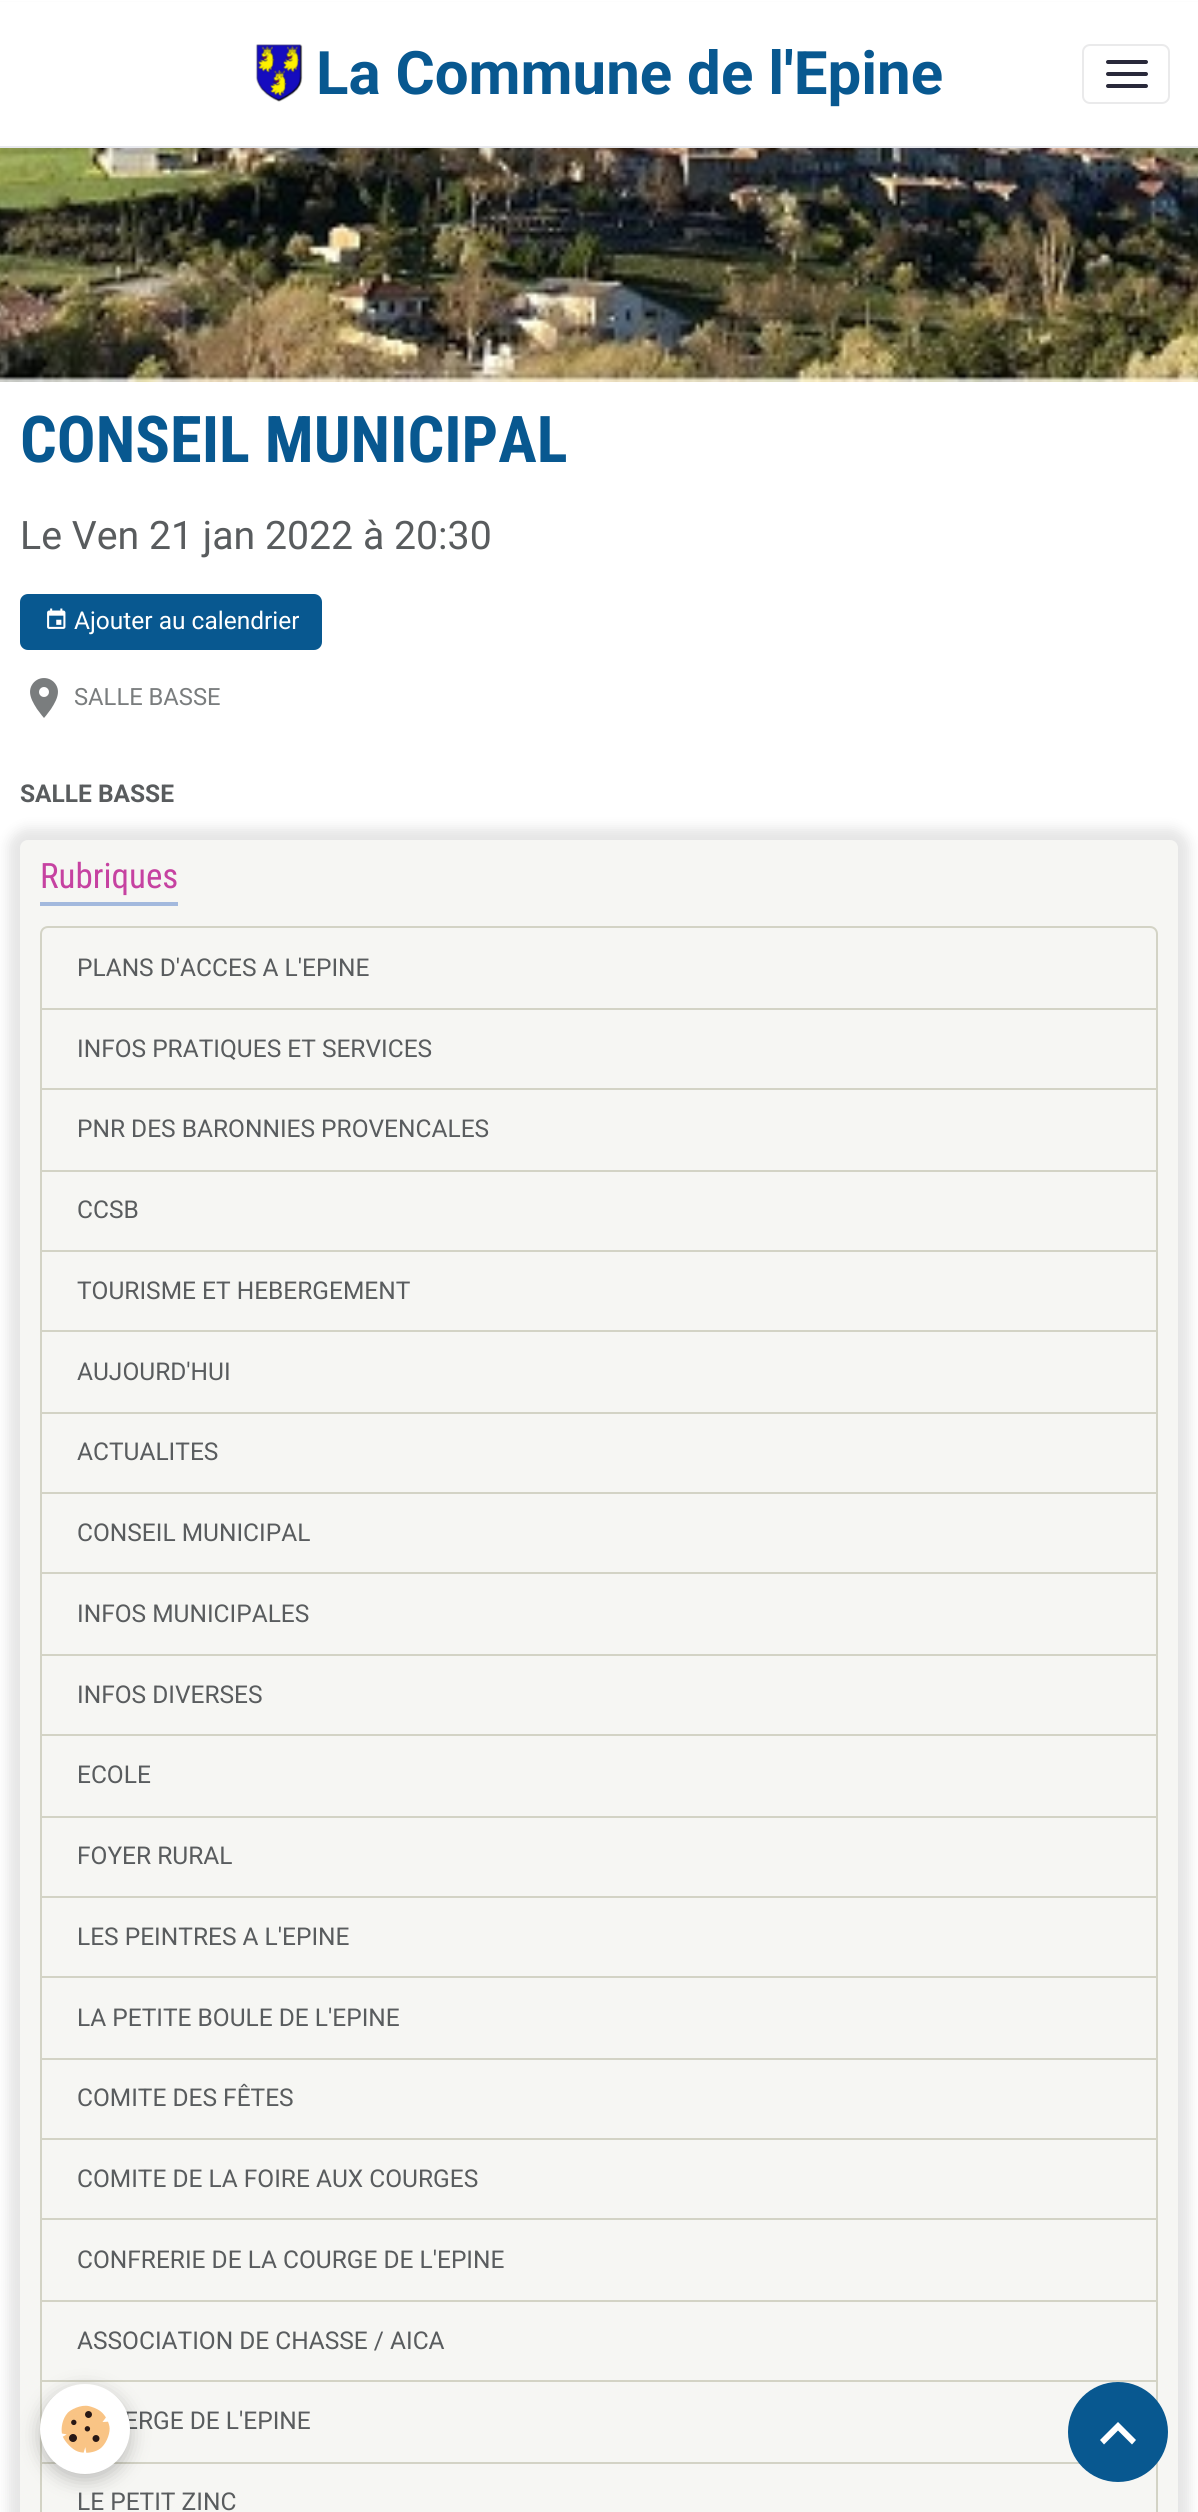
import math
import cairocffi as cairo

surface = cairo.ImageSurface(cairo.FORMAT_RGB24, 1198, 2512)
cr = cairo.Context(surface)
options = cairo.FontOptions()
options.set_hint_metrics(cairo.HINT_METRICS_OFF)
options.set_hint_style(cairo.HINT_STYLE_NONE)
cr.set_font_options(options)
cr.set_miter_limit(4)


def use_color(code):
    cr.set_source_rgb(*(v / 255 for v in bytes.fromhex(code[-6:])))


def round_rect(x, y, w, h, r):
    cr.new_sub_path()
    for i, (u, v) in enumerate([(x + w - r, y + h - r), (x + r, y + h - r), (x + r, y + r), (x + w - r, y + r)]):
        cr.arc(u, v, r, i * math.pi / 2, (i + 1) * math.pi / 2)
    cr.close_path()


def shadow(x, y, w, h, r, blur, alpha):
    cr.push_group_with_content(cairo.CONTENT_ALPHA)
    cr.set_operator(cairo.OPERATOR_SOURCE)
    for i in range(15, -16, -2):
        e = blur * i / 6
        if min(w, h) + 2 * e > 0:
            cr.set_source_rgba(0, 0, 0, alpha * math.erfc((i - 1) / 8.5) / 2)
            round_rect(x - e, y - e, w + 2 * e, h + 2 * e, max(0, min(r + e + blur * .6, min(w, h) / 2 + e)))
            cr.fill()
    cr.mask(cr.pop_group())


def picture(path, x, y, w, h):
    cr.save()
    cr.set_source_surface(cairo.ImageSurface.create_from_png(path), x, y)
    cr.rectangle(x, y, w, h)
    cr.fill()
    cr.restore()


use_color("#ffffff")
cr.paint()
picture("img2.png", 0, 148, 1198, 234)
use_color("#000000")
shadow(0, 6, 1198, 148, 0, 3, 0.1)
use_color("#ffffff")
cr.rectangle(0, 2, 1198, 144)
cr.fill()
use_color("#e8e9ee")
cr.rectangle(0, 146, 1198, 2)
cr.fill()
picture("img1.png", 255, 44, 48, 58)
cr.select_font_face("Roboto", cairo.FONT_SLANT_NORMAL, cairo.FONT_WEIGHT_BOLD)
cr.set_font_size(60)
use_color("#085890")
cr.move_to(316, 94)
cr.show_text("La Commune de l'Epine")
round_rect(1083, 45, 86, 58, 7)
use_color("#eaeaeb")
cr.stroke()
use_color("#29293a")
round_rect(1106, 60, 42, 4, 2)
cr.fill()
round_rect(1106, 72, 42, 4, 2)
cr.fill()
round_rect(1106, 84, 42, 4, 2)
cr.fill()
cr.select_font_face("Roboto Condensed", cairo.FONT_SLANT_NORMAL, cairo.FONT_WEIGHT_BOLD)
cr.set_font_size(64.5)
use_color("#085890")
cr.move_to(20, 462)
cr.show_text("CONSEIL MUNICIPAL")
cr.select_font_face("Roboto")
cr.set_font_size(39.25)
use_color("#595c5e")
cr.move_to(20, 549)
cr.show_text("Le Ven 21 jan 2022 à 20:30")
use_color("#085890")
round_rect(21, 595, 300, 54, 7)
cr.fill_preserve()
cr.stroke()
picture("img3.png", 47, 608, 19, 21)
cr.set_font_size(24.5)
use_color("#ffffff")
cr.move_to(74, 629)
cr.show_text("Ajouter au calendrier")
picture("img4.png", 30, 678, 28, 40)
cr.set_font_size(23.75)
use_color("#7a7d7e")
cr.move_to(74, 705)
cr.show_text("SALLE BASSE")
cr.select_font_face("Roboto", cairo.FONT_SLANT_NORMAL, cairo.FONT_WEIGHT_BOLD)
cr.set_font_size(24.5)
use_color("#595c5e")
cr.move_to(20, 802)
cr.show_text("SALLE BASSE")
use_color("#000000")
shadow(8, 828, 1182, 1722, 20, 6, 0.1)
use_color("#f6f6f3")
round_rect(20, 840, 1158, 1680, 8)
cr.fill()
use_color("#a3b9dd")
cr.rectangle(40, 902, 138, 4)
cr.fill()
cr.select_font_face("Roboto Condensed")
cr.set_font_size(35)
use_color("#c642a1")
cr.move_to(40, 888)
cr.show_text("Rubriques")
cr.new_path()
cr.move_to(48, 927)
cr.line_to(1150, 927)
cr.curve_to(1154, 927, 1157, 930, 1157, 934)
cr.line_to(1157, 1009)
cr.line_to(41, 1009)
cr.line_to(41, 934)
cr.curve_to(41, 930, 44, 927, 48, 927)
cr.close_path()
use_color("#d3d3c5")
cr.stroke()
cr.select_font_face("Roboto")
cr.set_font_size(24.5)
use_color("#595c5e")
cr.move_to(77, 976)
cr.show_text("PLANS D'ACCES A L'EPINE")
cr.rectangle(41, 1009, 1116, 80)
use_color("#d3d3c5")
cr.stroke()
use_color("#595c5e")
cr.move_to(77, 1057)
cr.show_text("INFOS PRATIQUES ET SERVICES")
cr.rectangle(41, 1089, 1116, 82)
use_color("#d3d3c5")
cr.stroke()
use_color("#595c5e")
cr.move_to(77, 1137)
cr.show_text("PNR DES BARONNIES PROVENCALES")
cr.rectangle(41, 1171, 1116, 80)
use_color("#d3d3c5")
cr.stroke()
use_color("#595c5e")
cr.move_to(77, 1218)
cr.show_text("CCSB")
cr.rectangle(41, 1251, 1116, 80)
use_color("#d3d3c5")
cr.stroke()
use_color("#595c5e")
cr.move_to(77, 1299)
cr.show_text("TOURISME ET HEBERGEMENT")
cr.rectangle(41, 1331, 1116, 82)
use_color("#d3d3c5")
cr.stroke()
use_color("#595c5e")
cr.move_to(77, 1380)
cr.show_text("AUJOURD'HUI")
cr.rectangle(41, 1413, 1116, 80)
use_color("#d3d3c5")
cr.stroke()
use_color("#595c5e")
cr.move_to(77, 1460)
cr.show_text("ACTUALITES")
cr.rectangle(41, 1493, 1116, 80)
use_color("#d3d3c5")
cr.stroke()
use_color("#595c5e")
cr.move_to(77, 1541)
cr.show_text("CONSEIL MUNICIPAL")
cr.rectangle(41, 1573, 1116, 82)
use_color("#d3d3c5")
cr.stroke()
use_color("#595c5e")
cr.move_to(77, 1622)
cr.show_text("INFOS MUNICIPALES")
cr.rectangle(41, 1655, 1116, 80)
use_color("#d3d3c5")
cr.stroke()
use_color("#595c5e")
cr.move_to(77, 1703)
cr.show_text("INFOS DIVERSES")
cr.rectangle(41, 1735, 1116, 82)
use_color("#d3d3c5")
cr.stroke()
use_color("#595c5e")
cr.move_to(77, 1783)
cr.show_text("ECOLE")
cr.rectangle(41, 1817, 1116, 80)
use_color("#d3d3c5")
cr.stroke()
use_color("#595c5e")
cr.move_to(77, 1864)
cr.show_text("FOYER RURAL")
cr.rectangle(41, 1897, 1116, 80)
use_color("#d3d3c5")
cr.stroke()
use_color("#595c5e")
cr.move_to(77, 1945)
cr.show_text("LES PEINTRES A L'EPINE")
cr.rectangle(41, 1977, 1116, 82)
use_color("#d3d3c5")
cr.stroke()
use_color("#595c5e")
cr.move_to(77, 2026)
cr.show_text("LA PETITE BOULE DE L'EPINE")
cr.rectangle(41, 2059, 1116, 80)
use_color("#d3d3c5")
cr.stroke()
use_color("#595c5e")
cr.move_to(77, 2106)
cr.show_text("COMITE DES FÊTES")
cr.rectangle(41, 2139, 1116, 80)
use_color("#d3d3c5")
cr.stroke()
use_color("#595c5e")
cr.move_to(77, 2187)
cr.show_text("COMITE DE LA FOIRE AUX COURGES")
cr.rectangle(41, 2219, 1116, 82)
use_color("#d3d3c5")
cr.stroke()
use_color("#595c5e")
cr.move_to(77, 2268)
cr.show_text("CONFRERIE DE LA COURGE DE L'EPINE")
cr.rectangle(41, 2301, 1116, 80)
use_color("#d3d3c5")
cr.stroke()
use_color("#595c5e")
cr.move_to(77, 2349)
cr.show_text("ASSOCIATION DE CHASSE / AICA")
cr.rectangle(41, 2381, 1116, 82)
use_color("#d3d3c5")
cr.stroke()
use_color("#595c5e")
cr.move_to(124, 2429)
cr.show_text("ERGE DE L'EPINE")
cr.rectangle(41, 2463, 1116, 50)
use_color("#d3d3c5")
cr.stroke()
use_color("#595c5e")
cr.move_to(77, 2510)
cr.show_text("LE PETIT ZINC")
use_color("#000000")
shadow(40, 2390, 90, 90, 45, 10, 0.24)
use_color("#ffffff")
cr.arc(85, 2429, 45, 0, 2 * math.pi)
cr.fill()
picture("img5.png", 61, 2405, 49, 48)
use_color("#085890")
cr.arc(1118, 2432, 50, 0, 2 * math.pi)
cr.fill()
use_color("#ffffff")
cr.new_path()
cr.move_to(1118, 2422)
cr.line_to(1136, 2440)
cr.line_to(1132, 2444.5)
cr.line_to(1118, 2430.5)
cr.line_to(1104, 2444.5)
cr.line_to(1100, 2440)
cr.close_path()
cr.fill()
surface.write_to_png("result.png")
